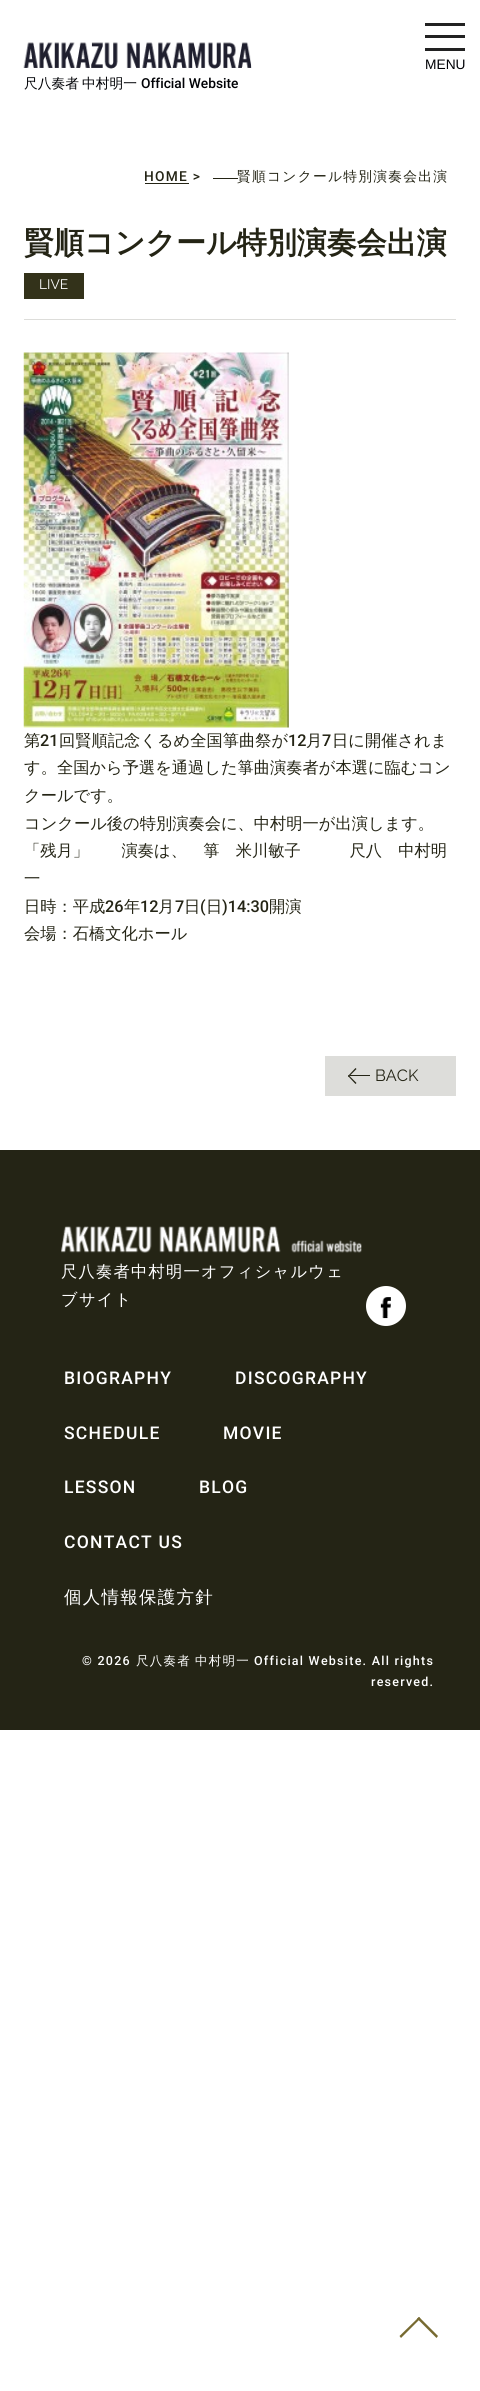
import math
import cairocffi as cairo

surface = cairo.ImageSurface(cairo.FORMAT_RGB24, 480, 2391)
cr = cairo.Context(surface)
options = cairo.FontOptions()
options.set_hint_metrics(cairo.HINT_METRICS_OFF)
options.set_hint_style(cairo.HINT_STYLE_NONE)
cr.set_font_options(options)
cr.set_miter_limit(4)


def use_color(code):
    cr.set_source_rgb(*(v / 255 for v in bytes.fromhex(code[-6:])))


def spaced_text(x, y, s, letter, word):
    cr.move_to(x, y)
    for ch in s:
        cr.show_text(ch)
        cr.rel_move_to(letter + word * (ch == ' '), 0)


def picture(path, x, y, w, h):
    cr.save()
    cr.set_source_surface(cairo.ImageSurface.create_from_png(path), x, y)
    cr.rectangle(x, y, w, h)
    cr.fill()
    cr.restore()


use_color("#ffffff")
cr.paint()
use_color("#222222")
cr.rectangle(425, 35, 40, 3)
cr.fill()
cr.rectangle(425, 23, 40, 3)
cr.fill()
cr.rectangle(425, 48, 40, 3)
cr.fill()
cr.select_font_face("Liberation Sans")
cr.set_font_size(13.75)
use_color("#000105")
cr.move_to(425, 69)
cr.show_text("MENU")
picture("img1.png", 23, 42, 229, 27)
cr.select_font_face("WenQuanYi Zen Hei Medium")
cr.move_to(24, 88)
cr.show_text("尺八奏者")
cr.move_to(82, 88)
cr.show_text("中村明一")
cr.select_font_face("Roboto Medium")
cr.move_to(141, 88)
cr.show_text("Official Website")
use_color("#242415")
spaced_text(144, 181, "HOME >", 1.25, 0)
cr.rectangle(145, 183, 44, 1)
cr.fill()
cr.rectangle(213, 178, 25, 1)
cr.fill()
cr.select_font_face("WenQuanYi Zen Hei Medium")
spaced_text(237, 181, "賢順コンクール特別演奏会出演", 1.25, 0)
cr.select_font_face("WenQuanYi Zen Hei", cairo.FONT_SLANT_NORMAL, cairo.FONT_WEIGHT_BOLD)
cr.set_font_size(30)
cr.move_to(24, 253)
cr.show_text("賢順コンクール特別演奏会出演")
use_color("#ddddda")
cr.rectangle(24, 319, 432, 1)
cr.fill()
use_color("#33321a")
cr.rectangle(24, 273, 60, 26)
cr.fill()
cr.select_font_face("Raleway")
cr.set_font_size(13.75)
use_color("#ffffff")
cr.move_to(39, 289)
cr.show_text("LIVE")
picture("img2.png", 23, 352, 266, 376)
cr.select_font_face("WenQuanYi Zen Hei Medium")
cr.set_font_size(16.25)
use_color("#242415")
cr.move_to(24, 746)
cr.show_text("第")
cr.select_font_face("Roboto Medium")
cr.move_to(40, 746)
cr.show_text("21")
cr.select_font_face("WenQuanYi Zen Hei Medium")
cr.move_to(59, 746)
cr.show_text("回賢順記念くるめ全国箏曲祭が")
cr.select_font_face("Roboto Medium")
cr.move_to(288, 746)
cr.show_text("12")
cr.select_font_face("WenQuanYi Zen Hei Medium")
cr.move_to(306, 746)
cr.show_text("月")
cr.select_font_face("Roboto Medium")
cr.move_to(322, 746)
cr.show_text("7")
cr.select_font_face("WenQuanYi Zen Hei Medium")
cr.move_to(332, 746)
cr.show_text("日に開催されま")
cr.move_to(24, 773)
cr.show_text("す。全国から予選を通過した箏曲演奏者が本選に臨むコン")
cr.move_to(24, 801)
cr.show_text("クールです。")
cr.move_to(24, 829)
cr.show_text("コンクール後の特別演奏会に、中村明一が出演します。")
cr.move_to(24, 856)
cr.show_text("「残月」　　演奏は、　箏　米川敏子　　　尺八　中村明")
cr.move_to(24, 884)
cr.show_text("一")
cr.move_to(24, 912)
cr.show_text("日時：平成")
cr.select_font_face("Roboto Medium")
cr.move_to(105, 912)
cr.show_text("26")
cr.select_font_face("WenQuanYi Zen Hei Medium")
cr.move_to(124, 912)
cr.show_text("年")
cr.select_font_face("Roboto Medium")
cr.move_to(140, 912)
cr.show_text("12")
cr.select_font_face("WenQuanYi Zen Hei Medium")
cr.move_to(158, 912)
cr.show_text("月")
cr.select_font_face("Roboto Medium")
cr.move_to(175, 912)
cr.show_text("7")
cr.select_font_face("WenQuanYi Zen Hei Medium")
cr.move_to(184, 912)
cr.show_text("日")
cr.select_font_face("Roboto Medium")
cr.move_to(200, 912)
cr.show_text("(")
cr.select_font_face("WenQuanYi Zen Hei Medium")
cr.move_to(206, 912)
cr.show_text("日")
cr.select_font_face("Roboto Medium")
cr.move_to(222, 912)
cr.show_text(")14:30")
cr.select_font_face("WenQuanYi Zen Hei Medium")
cr.move_to(269, 912)
cr.show_text("開演")
cr.move_to(24, 939)
cr.show_text("会場：石橋文化ホール")
use_color("#ddddda")
cr.rectangle(325, 1056, 131, 40)
cr.fill()
use_color("#242415")
cr.rectangle(350, 1075, 20, 1)
cr.fill()
cr.new_path()
cr.move_to(348.5, 1075)
cr.line_to(356.5, 1083)
cr.line_to(355.5, 1084)
cr.line_to(348, 1076)
cr.close_path()
cr.fill()
cr.new_path()
cr.move_to(355.5, 1068)
cr.line_to(356.5, 1069)
cr.line_to(348.5, 1077)
cr.line_to(348, 1076)
cr.close_path()
cr.fill()
cr.select_font_face("Raleway")
cr.move_to(375, 1081)
cr.show_text("BACK")
cr.rectangle(0, 1150, 480, 580)
cr.fill()
picture("img3.png", 61, 1226, 301, 27)
cr.select_font_face("WenQuanYi Zen Hei Medium")
use_color("#ffffff")
spaced_text(61, 1277, "尺八奏者中村明一オフィシャルウェ", 1.25, 0)
spaced_text(61, 1305, "ブサイト", 1.25, 0)
cr.new_path()
cr.arc(386, 1306, 20, 0, 2 * math.pi)
cr.fill()
picture("img4.png", 380, 1297, 11, 22)
cr.select_font_face("Roboto Medium")
cr.set_font_size(17.5)
spaced_text(64, 1384, "BIOGRAPHY", 1.25, 0)
spaced_text(235, 1384, "DISCOGRAPHY", 1.25, 0)
spaced_text(64, 1439, "SCHEDULE", 1.25, 0)
spaced_text(223, 1439, "MOVIE", 1.25, 0)
spaced_text(64, 1493, "LESSON", 1.25, 0)
spaced_text(199, 1493, "BLOG", 1.25, 0)
spaced_text(64, 1548, "CONTACT US", 1.25, 0)
cr.select_font_face("WenQuanYi Zen Hei Medium")
spaced_text(64, 1603, "個人情報保護方針", 1.25, 0)
cr.select_font_face("Roboto Medium")
cr.set_font_size(12.5)
spaced_text(82, 1665, "© 2026", 1.25, 0)
cr.select_font_face("WenQuanYi Zen Hei Medium")
spaced_text(136, 1665, "尺八奏者", 1.25, 0)
spaced_text(195, 1665, "中村明一", 1.25, 0)
cr.select_font_face("Roboto Medium")
spaced_text(254, 1665, "Official Website. All rights", 1.25, 0)
spaced_text(371, 1686, "reserved.", 1.25, 0)
use_color("#776a31")
cr.new_path()
cr.move_to(399.5, 2336)
cr.line_to(419, 2317)
cr.line_to(420.5, 2318.5)
cr.line_to(401, 2338)
cr.close_path()
cr.fill()
cr.new_path()
cr.move_to(417, 2318.5)
cr.line_to(419, 2317)
cr.line_to(438, 2336)
cr.line_to(436.5, 2338)
cr.close_path()
cr.fill()
surface.write_to_png("result.png")
